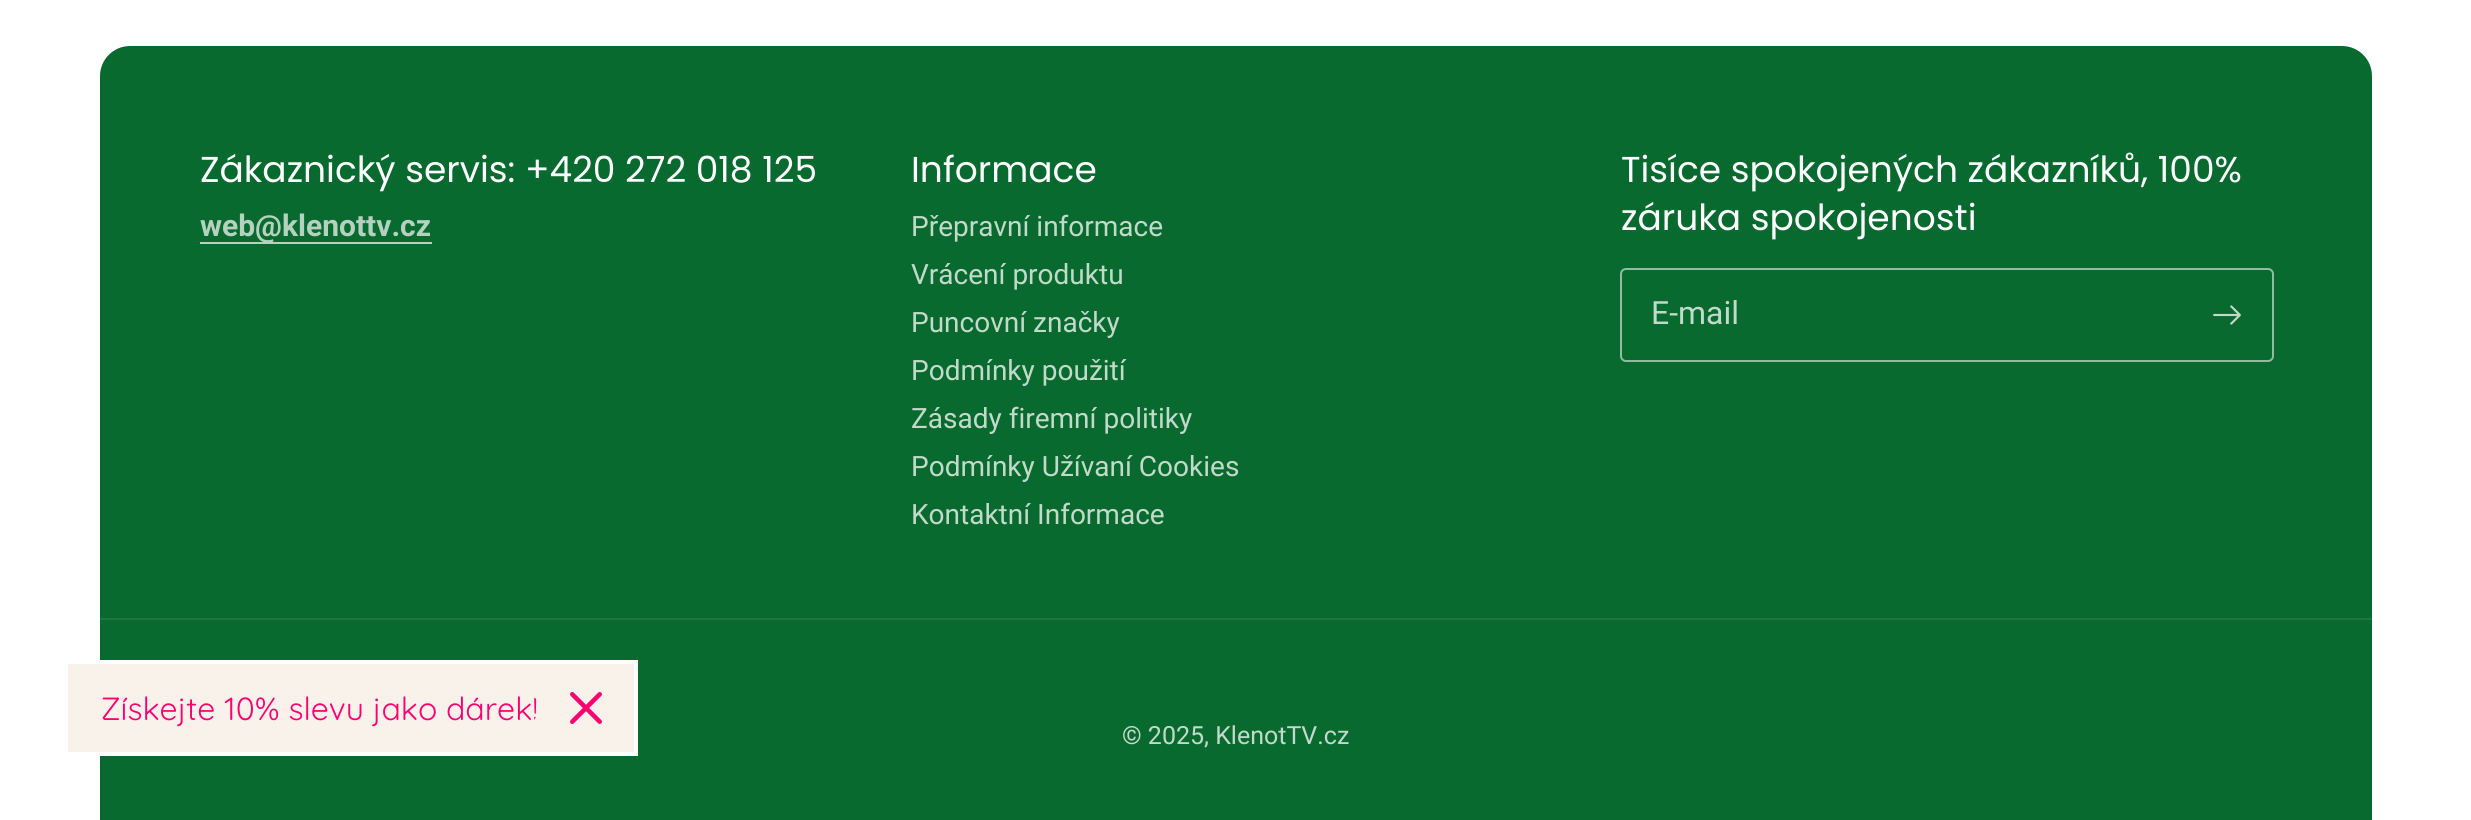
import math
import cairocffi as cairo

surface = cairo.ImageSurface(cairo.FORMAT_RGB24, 2471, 820)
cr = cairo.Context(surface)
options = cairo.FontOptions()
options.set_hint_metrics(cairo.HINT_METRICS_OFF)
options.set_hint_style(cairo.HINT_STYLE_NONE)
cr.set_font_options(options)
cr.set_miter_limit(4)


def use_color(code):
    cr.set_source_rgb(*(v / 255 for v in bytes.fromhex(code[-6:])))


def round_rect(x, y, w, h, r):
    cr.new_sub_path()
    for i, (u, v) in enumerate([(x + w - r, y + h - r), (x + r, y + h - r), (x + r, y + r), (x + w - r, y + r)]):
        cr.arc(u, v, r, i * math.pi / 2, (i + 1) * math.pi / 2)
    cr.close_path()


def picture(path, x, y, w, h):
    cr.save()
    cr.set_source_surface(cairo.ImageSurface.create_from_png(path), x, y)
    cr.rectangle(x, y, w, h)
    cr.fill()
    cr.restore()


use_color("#ffffff")
cr.paint()
use_color("#096a2f")
cr.new_path()
cr.move_to(130, 46)
cr.line_to(2342, 46)
cr.curve_to(2358.5, 46, 2372, 59.5, 2372, 76)
cr.line_to(2372, 820)
cr.line_to(100, 820)
cr.line_to(100, 76)
cr.curve_to(100, 59.5, 113.5, 46, 130, 46)
cr.close_path()
cr.fill()
cr.select_font_face("Poppins")
cr.set_font_size(36)
use_color("#ffffff")
cr.move_to(200, 182)
cr.show_text("Zákaznický servis: +420 272 018 125")
use_color("#b5d2c1")
cr.rectangle(200, 242, 232, 2)
cr.fill()
cr.select_font_face("Roboto", cairo.FONT_SLANT_NORMAL, cairo.FONT_WEIGHT_BOLD)
cr.set_font_size(30)
cr.move_to(200, 236)
cr.show_text("web@klenottv.cz")
cr.select_font_face("Poppins")
cr.set_font_size(36)
use_color("#ffffff")
cr.move_to(911, 182)
cr.show_text("Informace")
cr.select_font_face("Roboto")
cr.set_font_size(28)
use_color("#c2dacb")
cr.move_to(911, 236)
cr.show_text("Přepravní informace")
cr.move_to(911, 284)
cr.show_text("Vrácení produktu")
cr.move_to(911, 332)
cr.show_text("Puncovní značky")
cr.move_to(911, 380)
cr.show_text("Podmínky použití")
cr.move_to(911, 428)
cr.show_text("Zásady firemní politiky")
cr.move_to(911, 476)
cr.show_text("Podmínky Užívaní Cookies")
cr.move_to(911, 524)
cr.show_text("Kontaktní Informace")
cr.select_font_face("Poppins")
cr.set_font_size(36)
use_color("#ffffff")
cr.move_to(1621, 182)
cr.show_text("Tisíce spokojených zákazníků, 100%")
cr.move_to(1621, 230)
cr.show_text("záruka spokojenosti")
round_rect(1621, 269, 652, 92, 5)
use_color("#90bca1")
cr.stroke()
cr.select_font_face("Roboto")
cr.set_font_size(32)
use_color("#c2dacb")
cr.move_to(1651, 324)
cr.show_text("E-mail")
picture("img1.png", 2213, 305, 28, 20)
use_color("#1d7640")
cr.rectangle(100, 618, 2272, 2)
cr.fill()
cr.set_font_size(25)
use_color("#c2dacb")
cr.move_to(1122, 744)
cr.show_text("© 2025, KlenotTV.cz")
use_color("#f8f2eb")
cr.rectangle(66, 662, 570, 92)
cr.fill_preserve()
use_color("#ffffff")
cr.set_line_width(4)
cr.stroke()
cr.save()
round_rect(100, 688, 438, 40, 20)
cr.clip()
cr.select_font_face("Quicksand")
cr.set_font_size(32)
use_color("#ff0071")
cr.move_to(100, 720)
cr.show_text("Získejte 10% slevu jako dárek!")
cr.restore()
picture("img2.png", 570, 692, 32, 32)
surface.write_to_png("result.png")
